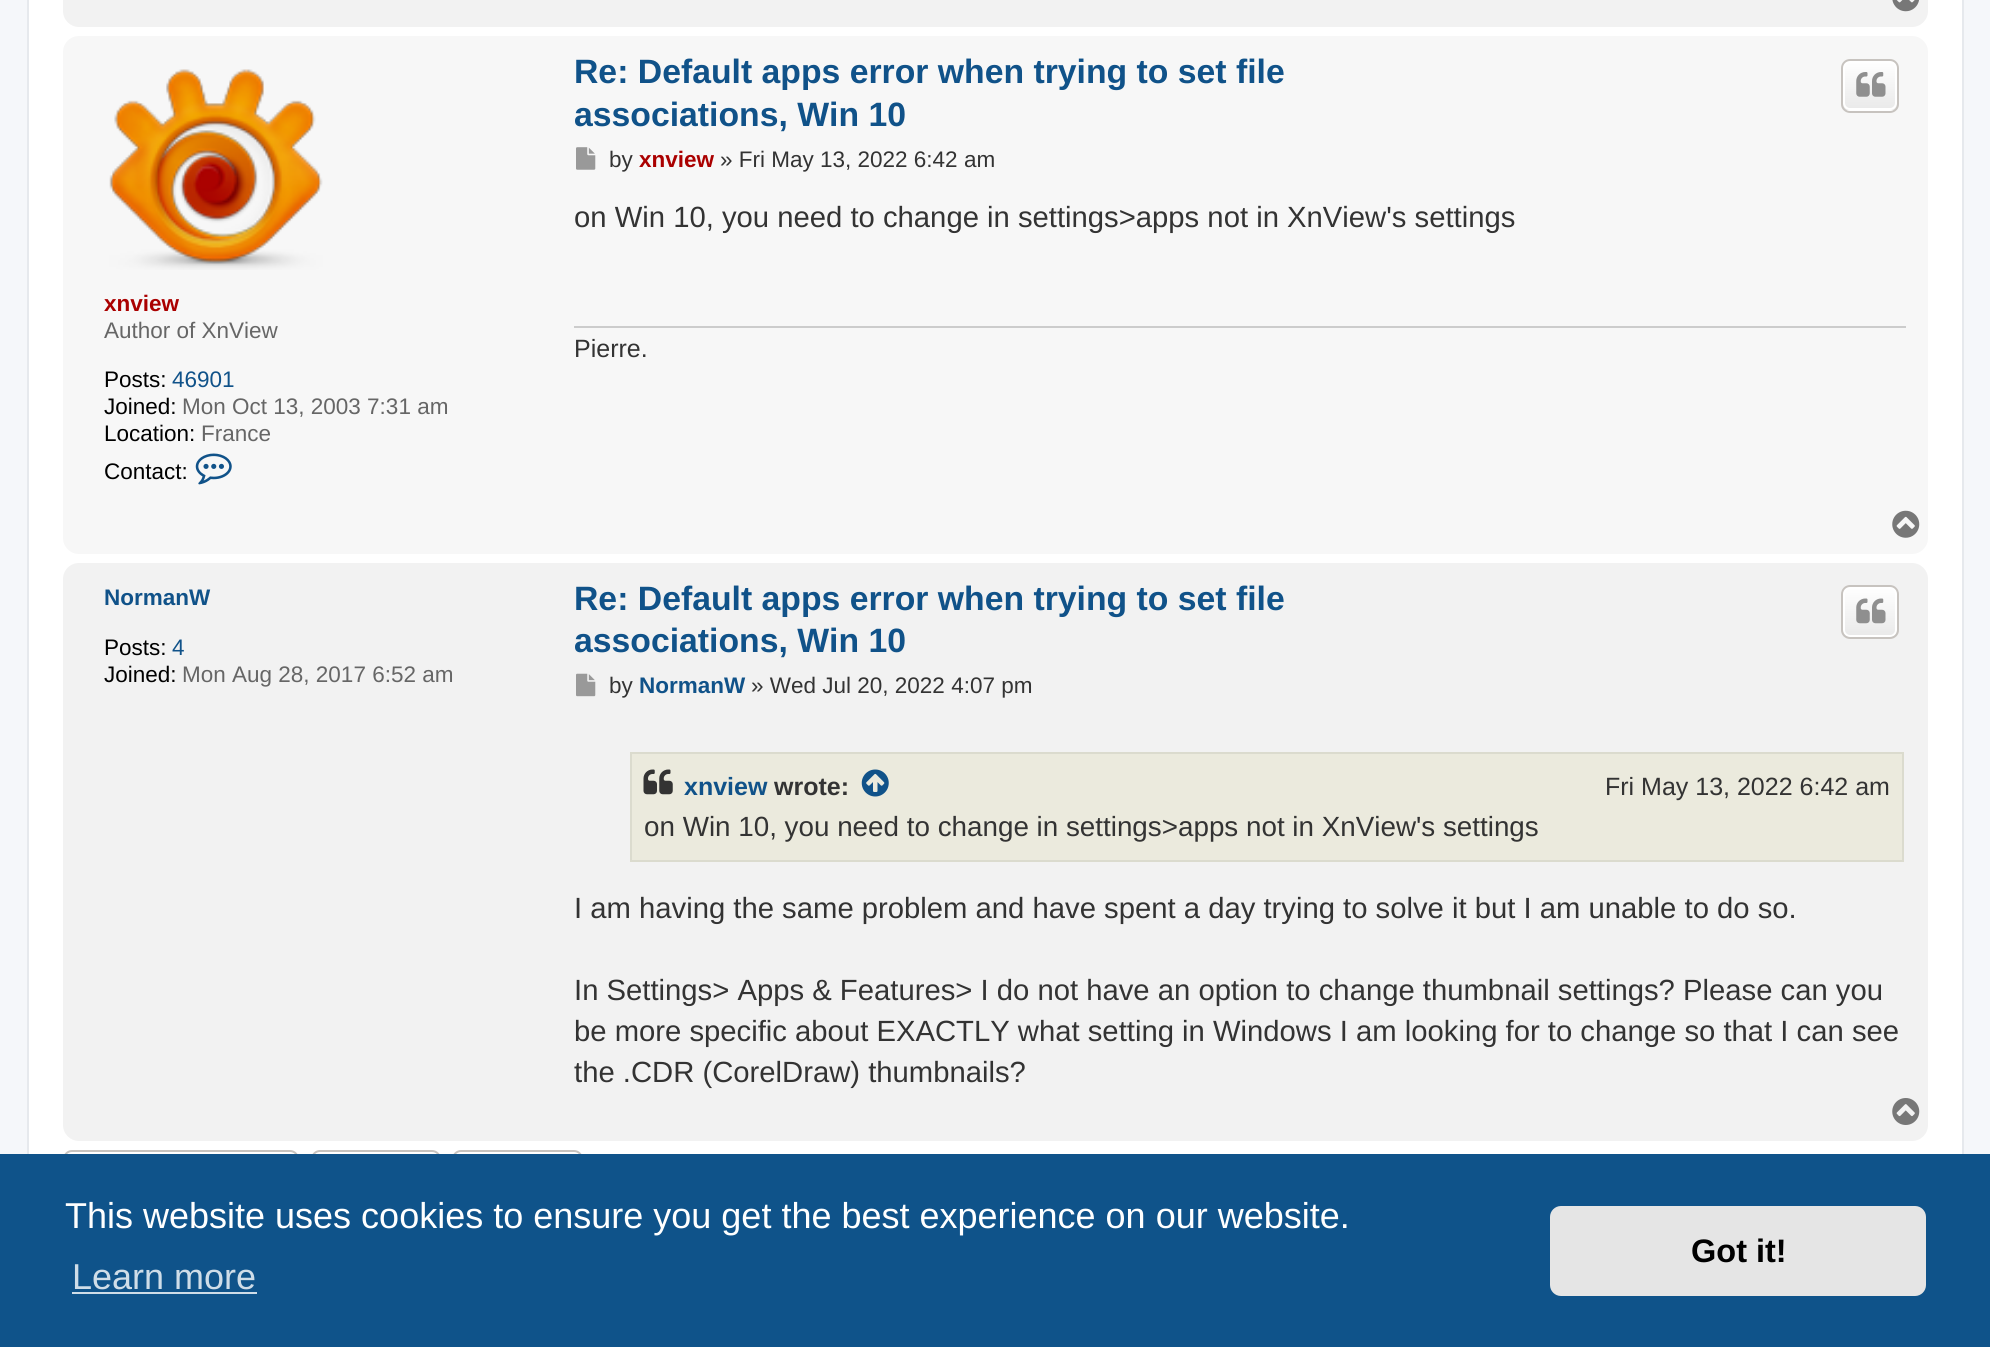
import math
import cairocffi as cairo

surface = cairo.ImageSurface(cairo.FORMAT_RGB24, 1990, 1347)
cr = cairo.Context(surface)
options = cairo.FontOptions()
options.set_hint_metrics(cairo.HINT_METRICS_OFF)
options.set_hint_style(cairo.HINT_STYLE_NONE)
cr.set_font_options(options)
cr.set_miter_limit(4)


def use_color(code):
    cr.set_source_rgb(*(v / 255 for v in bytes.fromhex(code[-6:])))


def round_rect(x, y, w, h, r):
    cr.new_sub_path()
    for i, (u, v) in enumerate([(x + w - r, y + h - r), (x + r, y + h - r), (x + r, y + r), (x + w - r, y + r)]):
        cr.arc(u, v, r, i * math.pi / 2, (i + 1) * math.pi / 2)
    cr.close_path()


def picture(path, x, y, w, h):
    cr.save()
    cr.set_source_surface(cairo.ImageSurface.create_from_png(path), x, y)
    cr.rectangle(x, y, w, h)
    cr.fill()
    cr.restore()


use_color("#f5f7fa")
cr.paint()
use_color("#ffffff")
cr.rectangle(29, 0, 1933, 1154)
cr.fill()
cr.rectangle(28, -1, 1935, 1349)
use_color("#e6e9ed")
cr.stroke()
use_color("#f2f2f2")
round_rect(63, -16, 1865, 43, 16)
cr.fill()
picture("img1.png", 1892, 0, 27, 12)
use_color("#f7f7f7")
round_rect(63, 36, 1865, 518, 16)
cr.fill()
cr.select_font_face("Liberation Sans", cairo.FONT_SLANT_NORMAL, cairo.FONT_WEIGHT_BOLD)
cr.set_font_size(33.75)
use_color("#105289")
cr.move_to(574, 83)
cr.show_text("Re: Default apps error when trying to set file")
cr.move_to(574, 126)
cr.show_text("associations, Win 10")
cr.save()
round_rect(1841, 59, 58, 54, 9)
cr.clip()
gradient = cairo.LinearGradient(1870, 61, 1870, 110)
gradient.add_color_stop_rgba(0, 1, 1, 1, 1)
gradient.add_color_stop_rgba(1, 0.914, 0.914, 0.914, 1)
cr.set_source(gradient)
cr.rectangle(1841, 61, 58, 49)
cr.fill()
gradient = cairo.LinearGradient(1870, 110, 1870, 160)
gradient.add_color_stop_rgba(0, 1, 1, 1, 1)
gradient.add_color_stop_rgba(1, 0.914, 0.914, 0.914, 1)
cr.set_source(gradient)
cr.rectangle(1841, 110, 58, 3)
cr.fill()
cr.restore()
round_rect(1844, 62, 52, 47, 6)
use_color("#ffffff")
cr.stroke()
round_rect(1842, 60, 56, 52, 8)
use_color("#c7c3bf")
cr.stroke()
picture("img2.png", 1856, 72, 30, 25)
picture("img3.png", 576, 147, 20, 23)
cr.select_font_face("Liberation Sans")
cr.set_font_size(22.5)
use_color("#333333")
cr.move_to(609, 167)
cr.show_text("by")
cr.select_font_face("Liberation Sans", cairo.FONT_SLANT_NORMAL, cairo.FONT_WEIGHT_BOLD)
use_color("#aa0000")
cr.move_to(639, 167)
cr.show_text("xnview")
cr.select_font_face("Liberation Sans")
use_color("#333333")
cr.move_to(720, 167)
cr.show_text("» Fri May 13, 2022 6:42 am")
cr.set_font_size(29.25)
cr.move_to(574, 227)
cr.show_text("on Win 10, you need to change in settings>apps not in XnView's settings")
use_color("#cccccc")
cr.rectangle(574, 326, 1332, 2)
cr.fill()
cr.set_font_size(25)
use_color("#333333")
cr.move_to(574, 357)
cr.show_text("Pierre.")
picture("img4.png", 109, 69, 214, 201)
cr.select_font_face("Liberation Sans", cairo.FONT_SLANT_NORMAL, cairo.FONT_WEIGHT_BOLD)
cr.set_font_size(22.5)
use_color("#aa0000")
cr.move_to(104, 311)
cr.show_text("xnview")
cr.select_font_face("Liberation Sans")
use_color("#666666")
cr.move_to(104, 338)
cr.show_text("Author of XnView")
use_color("#000000")
cr.move_to(104, 387)
cr.show_text("Posts:")
use_color("#105289")
cr.move_to(172, 387)
cr.show_text("46901")
use_color("#000000")
cr.move_to(104, 414)
cr.show_text("Joined:")
use_color("#666666")
cr.move_to(182, 414)
cr.show_text("Mon Oct 13, 2003 7:31 am")
use_color("#000000")
cr.move_to(104, 441)
cr.show_text("Location:")
use_color("#666666")
cr.move_to(201, 441)
cr.show_text("France")
use_color("#000000")
cr.move_to(104, 479)
cr.show_text("Contact:")
picture("img5.png", 195, 453, 37, 32)
picture("img6.png", 1892, 510, 28, 28)
use_color("#f2f2f2")
round_rect(63, 563, 1865, 578, 16)
cr.fill()
cr.select_font_face("Liberation Sans", cairo.FONT_SLANT_NORMAL, cairo.FONT_WEIGHT_BOLD)
use_color("#105289")
cr.move_to(104, 605)
cr.show_text("NormanW")
cr.select_font_face("Liberation Sans")
use_color("#000000")
cr.move_to(104, 655)
cr.show_text("Posts:")
use_color("#105289")
cr.move_to(172, 655)
cr.show_text("4")
use_color("#000000")
cr.move_to(104, 682)
cr.show_text("Joined:")
use_color("#666666")
cr.move_to(182, 682)
cr.show_text("Mon Aug 28, 2017 6:52 am")
cr.select_font_face("Liberation Sans", cairo.FONT_SLANT_NORMAL, cairo.FONT_WEIGHT_BOLD)
cr.set_font_size(33.75)
use_color("#105289")
cr.move_to(574, 610)
cr.show_text("Re: Default apps error when trying to set file")
cr.move_to(574, 652)
cr.show_text("associations, Win 10")
cr.save()
round_rect(1841, 585, 58, 54, 9)
cr.clip()
gradient = cairo.LinearGradient(1870, 587, 1870, 637)
gradient.add_color_stop_rgba(0, 1, 1, 1, 1)
gradient.add_color_stop_rgba(1, 0.914, 0.914, 0.914, 1)
cr.set_source(gradient)
cr.rectangle(1841, 587, 58, 50)
cr.fill()
cr.restore()
round_rect(1844, 588, 52, 48, 6)
use_color("#ffffff")
cr.stroke()
round_rect(1842, 586, 56, 52, 8)
use_color("#c7c3bf")
cr.stroke()
picture("img7.png", 1856, 598, 30, 26)
picture("img8.png", 576, 673, 20, 24)
cr.select_font_face("Liberation Sans")
cr.set_font_size(22.5)
use_color("#333333")
cr.move_to(609, 693)
cr.show_text("by")
cr.select_font_face("Liberation Sans", cairo.FONT_SLANT_NORMAL, cairo.FONT_WEIGHT_BOLD)
use_color("#105289")
cr.move_to(639, 693)
cr.show_text("NormanW")
cr.select_font_face("Liberation Sans")
use_color("#333333")
cr.move_to(751, 693)
cr.show_text("» Wed Jul 20, 2022 4:07 pm")
use_color("#ebeadd")
cr.rectangle(631, 753, 1272, 108)
cr.fill_preserve()
use_color("#dbdbce")
cr.stroke()
picture("img9.png", 643, 769, 30, 26)
cr.select_font_face("Liberation Sans", cairo.FONT_SLANT_NORMAL, cairo.FONT_WEIGHT_BOLD)
cr.set_font_size(25)
use_color("#105289")
cr.move_to(684, 795)
cr.show_text("xnview")
use_color("#333333")
cr.move_to(774, 795)
cr.show_text("wrote:")
picture("img10.png", 861, 769, 28, 28)
cr.select_font_face("Liberation Sans")
cr.move_to(1605, 795)
cr.show_text("Fri May 13, 2022 6:42 am")
cr.set_font_size(27.8)
cr.move_to(644, 836)
cr.show_text("on Win 10, you need to change in settings>apps not in XnView's settings")
cr.set_font_size(29.25)
cr.move_to(574, 918)
cr.show_text("I am having the same problem and have spent a day trying to solve it but I am unable to do so.")
cr.move_to(574, 1000)
cr.show_text("In Settings> Apps & Features> I do not have an option to change thumbnail settings? Please can you")
cr.move_to(574, 1041)
cr.show_text("be more specific about EXACTLY what setting in Windows I am looking for to change so that I can see")
cr.move_to(574, 1082)
cr.show_text("the .CDR (CorelDraw) thumbnails?")
picture("img11.png", 1892, 1098, 28, 27)
round_rect(66, 1153, 230, 48, 6)
use_color("#ffffff")
cr.stroke()
round_rect(64, 1151, 234, 52, 8)
use_color("#c7c3bf")
cr.stroke()
round_rect(314, 1153, 124, 48, 6)
use_color("#ffffff")
cr.stroke()
round_rect(312, 1151, 128, 52, 8)
use_color("#c7c3bf")
cr.stroke()
cr.save()
round_rect(452, 1150, 131, 54, 9)
cr.clip()
gradient = cairo.LinearGradient(518, 1152, 518, 1202)
gradient.add_color_stop_rgba(0, 1, 1, 1, 1)
gradient.add_color_stop_rgba(1, 0.914, 0.914, 0.914, 1)
cr.set_source(gradient)
cr.rectangle(453, 1152, 129, 2)
cr.fill()
cr.restore()
round_rect(456, 1153, 124, 48, 6)
use_color("#ffffff")
cr.stroke()
round_rect(453, 1151, 129, 52, 8)
use_color("#c7c3bf")
cr.stroke()
use_color("#0f538a")
cr.rectangle(0, 1154, 1990, 193)
cr.fill()
cr.set_font_size(36)
use_color("#ffffff")
cr.move_to(65, 1228)
cr.show_text("This website uses cookies to ensure you get the best experience on our website.")
use_color("#cfdde8")
cr.move_to(72, 1289)
cr.show_text("Learn more")
cr.rectangle(72, 1292, 185, 2)
cr.fill()
use_color("#e5e5e5")
round_rect(1550, 1206, 376, 90, 11)
cr.fill()
cr.select_font_face("Liberation Sans", cairo.FONT_SLANT_NORMAL, cairo.FONT_WEIGHT_BOLD)
cr.set_font_size(32.5)
use_color("#000000")
cr.move_to(1691, 1262)
cr.show_text("Got it!")
surface.write_to_png("result.png")
